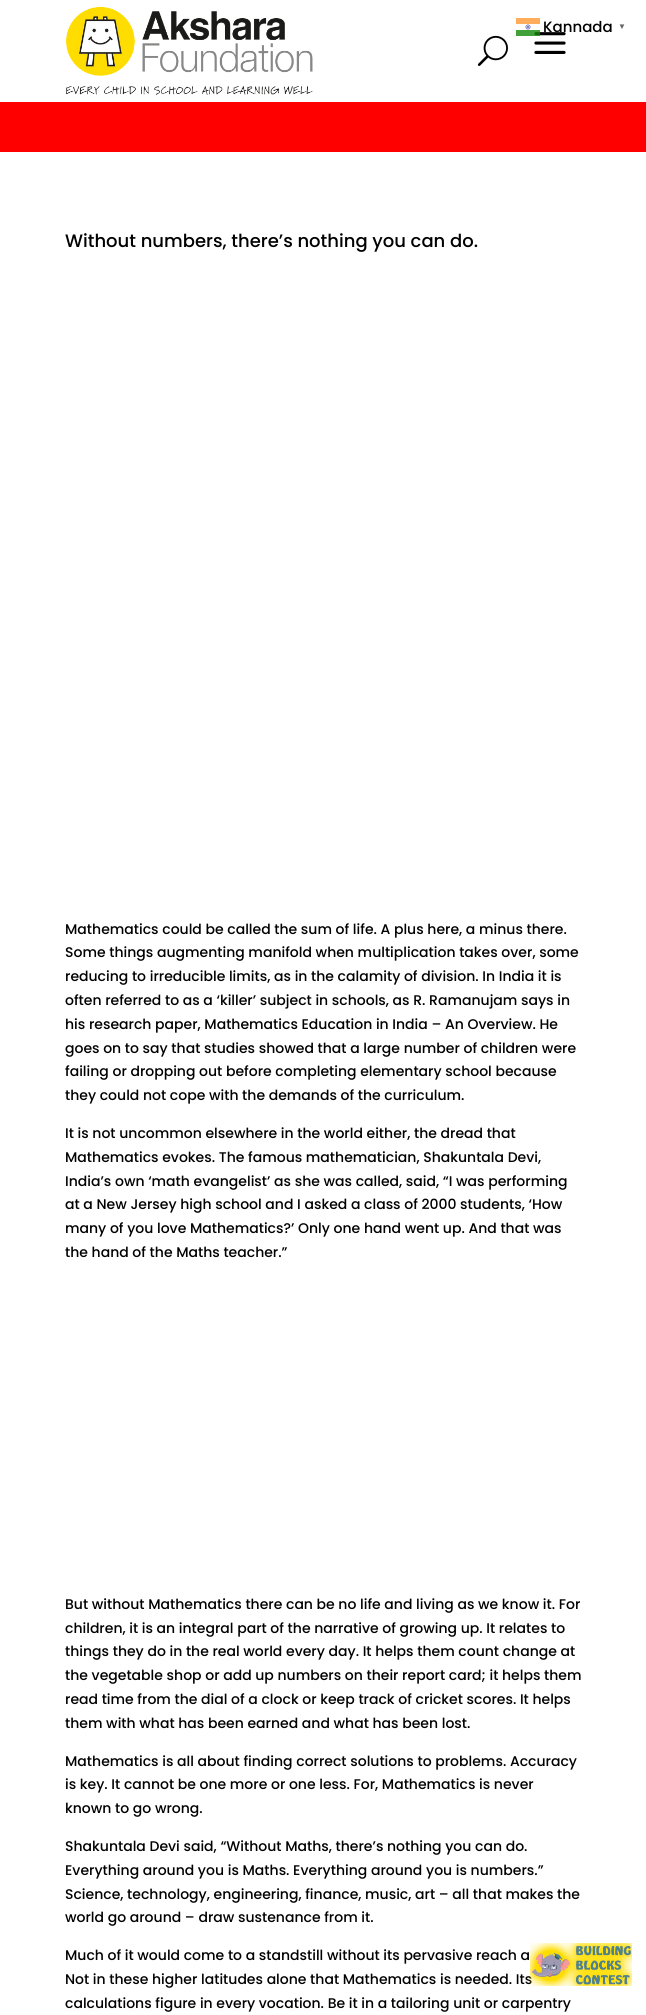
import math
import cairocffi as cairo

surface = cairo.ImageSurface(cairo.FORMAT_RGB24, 646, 2015)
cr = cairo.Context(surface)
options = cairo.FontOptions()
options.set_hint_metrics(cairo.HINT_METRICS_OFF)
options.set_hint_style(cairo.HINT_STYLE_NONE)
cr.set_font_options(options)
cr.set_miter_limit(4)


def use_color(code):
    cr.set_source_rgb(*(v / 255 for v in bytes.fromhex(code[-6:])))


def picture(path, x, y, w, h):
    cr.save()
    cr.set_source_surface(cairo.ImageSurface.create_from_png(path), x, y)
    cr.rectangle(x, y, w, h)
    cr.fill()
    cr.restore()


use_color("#ffffff")
cr.paint()
picture("img4.png", 534, 32, 32, 22)
picture("img1.png", 516, 18, 24, 18)
cr.select_font_face("Poppins Medium")
cr.set_font_size(15)
use_color("#000000")
cr.move_to(543, 32)
cr.show_text("Kannada")
cr.select_font_face("Liberation Sans", cairo.FONT_SLANT_NORMAL, cairo.FONT_WEIGHT_BOLD)
cr.set_font_size(8)
use_color("#666666")
cr.move_to(618, 29)
cr.show_text("▼")
picture("img2.png", 66, 6, 247, 89)
picture("img3.png", 477, 35, 31, 31)
use_color("#ff0000")
cr.rectangle(0, 102, 646, 50)
cr.fill()
cr.select_font_face("Poppins Medium")
cr.set_font_size(18)
use_color("#000000")
cr.move_to(65, 247)
cr.show_text("Without numbers, there’s nothing you can do.")
cr.set_font_size(14)
cr.move_to(65, 934)
cr.show_text("Mathematics could be called the sum of life. A plus here, a minus there.")
cr.move_to(65, 957)
cr.show_text("Some things augmenting manifold when multiplication takes over, some")
cr.move_to(65, 981)
cr.show_text("reducing to irreducible limits, as in the calamity of division. In India it is")
cr.move_to(65, 1005)
cr.show_text("often referred to as a ‘killer’ subject in schools, as R. Ramanujam says in")
cr.move_to(65, 1029)
cr.show_text("his research paper, Mathematics Education in India – An Overview. He")
cr.move_to(65, 1053)
cr.show_text("goes on to say that studies showed that a large number of children were")
cr.move_to(65, 1076)
cr.show_text("failing or dropping out before completing elementary school because")
cr.move_to(65, 1100)
cr.show_text("they could not cope with the demands of the curriculum.")
cr.move_to(65, 1138)
cr.show_text("It is not uncommon elsewhere in the world either, the dread that")
cr.move_to(65, 1162)
cr.show_text("Mathematics evokes. The famous mathematician, Shakuntala Devi,")
cr.move_to(65, 1186)
cr.show_text("India’s own ‘math evangelist’ as she was called, said, “I was performing")
cr.move_to(65, 1209)
cr.show_text("at a New Jersey high school and I asked a class of 2000 students, ‘How")
cr.move_to(65, 1233)
cr.show_text("many of you love Mathematics?’ Only one hand went up. And that was")
cr.move_to(65, 1257)
cr.show_text("the hand of the Maths teacher.”")
cr.move_to(65, 1609)
cr.show_text("But without Mathematics there can be no life and living as we know it. For")
cr.move_to(65, 1633)
cr.show_text("children, it is an integral part of the narrative of growing up. It relates to")
cr.move_to(65, 1656)
cr.show_text("things they do in the real world every day. It helps them count change at")
cr.move_to(65, 1680)
cr.show_text("the vegetable shop or add up numbers on their report card; it helps them")
cr.move_to(65, 1704)
cr.show_text("read time from the dial of a clock or keep track of cricket scores. It helps")
cr.move_to(65, 1728)
cr.show_text("them with what has been earned and what has been lost.")
cr.move_to(65, 1766)
cr.show_text("Mathematics is all about finding correct solutions to problems. Accuracy")
cr.move_to(65, 1789)
cr.show_text("is key. It cannot be one more or one less. For, Mathematics is never")
cr.move_to(65, 1813)
cr.show_text("known to go wrong.")
cr.move_to(65, 1851)
cr.show_text("Shakuntala Devi said, “Without Maths, there’s nothing you can do.")
cr.move_to(65, 1875)
cr.show_text("Everything around you is Maths. Everything around you is numbers.”")
cr.move_to(65, 1899)
cr.show_text("Science, technology, engineering, finance, music, art – all that makes the")
cr.move_to(65, 1922)
cr.show_text("world go around – draw sustenance from it.")
cr.move_to(65, 1960)
cr.show_text("Much of it would come to a standstill without its pervasive reach a")
cr.move_to(65, 1984)
cr.show_text("Not in these higher latitudes alone that Mathematics is needed. Its")
cr.move_to(65, 2008)
cr.show_text("calculations figure in every vocation. Be it in a tailoring unit or carpentry")
picture("img5.png", 530, 1943, 102, 43)
surface.write_to_png("result.png")
